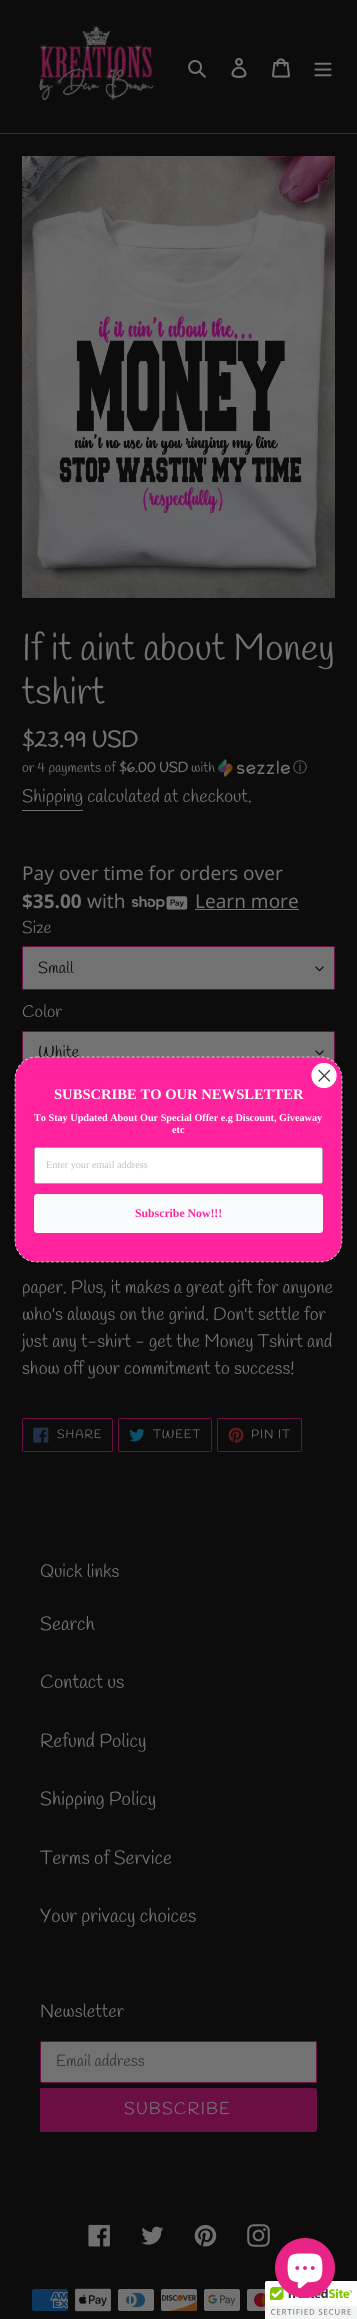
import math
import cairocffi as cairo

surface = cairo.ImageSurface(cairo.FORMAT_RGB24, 357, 2319)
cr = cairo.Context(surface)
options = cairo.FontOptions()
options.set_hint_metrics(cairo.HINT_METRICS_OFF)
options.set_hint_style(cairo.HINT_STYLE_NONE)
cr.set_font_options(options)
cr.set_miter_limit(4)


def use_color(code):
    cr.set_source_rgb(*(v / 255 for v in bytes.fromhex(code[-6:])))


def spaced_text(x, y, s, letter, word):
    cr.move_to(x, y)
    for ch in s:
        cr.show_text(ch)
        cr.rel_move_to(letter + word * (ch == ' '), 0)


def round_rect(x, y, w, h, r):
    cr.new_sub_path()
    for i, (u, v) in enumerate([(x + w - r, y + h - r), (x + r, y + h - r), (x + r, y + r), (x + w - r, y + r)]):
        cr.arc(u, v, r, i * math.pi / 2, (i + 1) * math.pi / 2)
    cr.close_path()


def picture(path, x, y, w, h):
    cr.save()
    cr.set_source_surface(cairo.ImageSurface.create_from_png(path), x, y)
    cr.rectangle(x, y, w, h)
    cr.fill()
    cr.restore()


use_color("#0c0c0c")
cr.paint()
use_color("#6a0e44")
cr.rectangle(0, 133, 357, 1)
cr.fill()
picture("img1.png", 38, 23, 116, 79)
picture("img2.png", 188, 60, 18, 18)
picture("img3.png", 231, 58, 16, 20)
picture("img4.png", 272, 58, 18, 20)
picture("img5.png", 314, 62, 18, 15)
picture("img6.png", 22, 156, 313, 442)
cr.select_font_face("Handlee")
cr.set_font_size(37)
use_color("#727272")
cr.move_to(22, 660)
cr.show_text("If it aint about Money")
cr.move_to(22, 704)
cr.show_text("tshirt")
cr.select_font_face("Handlee", cairo.FONT_SLANT_NORMAL, cairo.FONT_WEIGHT_BOLD)
cr.set_font_size(22.5)
cr.move_to(22, 747)
cr.show_text("$23.99 USD")
cr.select_font_face("Handlee")
cr.set_font_size(14)
cr.move_to(22, 772)
cr.show_text("or 4 payments of")
cr.select_font_face("Handlee", cairo.FONT_SLANT_NORMAL, cairo.FONT_WEIGHT_BOLD)
cr.move_to(119, 772)
cr.show_text("$6.00 USD")
cr.select_font_face("Handlee")
cr.move_to(191, 772)
cr.show_text("with")
picture("img7.png", 218, 759, 72, 18)
cr.select_font_face("WenQuanYi Zen Hei Medium")
cr.move_to(293, 772)
cr.show_text("ⓘ")
cr.select_font_face("Handlee")
cr.set_font_size(18)
cr.move_to(22, 802)
cr.show_text("Shipping calculated at checkout.")
cr.rectangle(22, 810, 61, 1)
cr.fill()
cr.select_font_face("Noto Sans")
cr.set_font_size(19)
cr.move_to(22, 880)
cr.show_text("Pay over time for orders over")
cr.select_font_face("Noto Sans", cairo.FONT_SLANT_NORMAL, cairo.FONT_WEIGHT_BOLD)
cr.move_to(22, 908)
cr.show_text("$35.00")
cr.select_font_face("Noto Sans")
cr.move_to(87, 908)
cr.show_text("with")
picture("img8.png", 131, 896, 57, 14)
cr.move_to(195, 908)
cr.show_text("Learn more")
cr.rectangle(195, 909, 104, 1)
cr.fill()
cr.select_font_face("Handlee")
cr.set_font_size(17)
cr.move_to(22, 933)
cr.show_text("Size")
round_rect(22, 946, 313, 44, 2)
cr.fill()
picture("img9.png", 315, 966, 9, 6)
round_rect(22.5, 946.5, 312, 43, 1.5)
use_color("#6a0e44")
cr.set_line_width(1)
cr.stroke()
cr.set_font_size(16)
use_color("#0c0c0c")
cr.move_to(38, 973)
cr.show_text("Small")
cr.set_font_size(17)
use_color("#727272")
cr.move_to(22, 1017)
cr.show_text("Color")
round_rect(22, 1031, 313, 44, 2)
cr.fill()
picture("img9.png", 315, 1050, 9, 6)
round_rect(22.5, 1031.5, 312, 43, 1.5)
use_color("#6a0e44")
cr.stroke()
cr.set_font_size(16)
use_color("#0c0c0c")
cr.move_to(38, 1057)
cr.show_text("White")
cr.set_font_size(18)
use_color("#727272")
cr.move_to(22, 1293)
cr.show_text("paper. Plus, it makes a great gift for anyone")
cr.move_to(22, 1320)
cr.show_text("who's always on the grind. Don't settle for")
cr.move_to(22, 1347)
cr.show_text("just any t-shirt - get the Money Tshirt and")
cr.move_to(22, 1374)
cr.show_text("show off your commitment to success!")
round_rect(22.5, 1418.5, 90, 33, 1.5)
use_color("#6a0e44")
cr.stroke()
picture("img10.png", 33, 1427, 16, 16)
cr.set_font_size(12)
use_color("#727272")
spaced_text(57, 1438, "SHARE", 1, 0)
round_rect(118.5, 1418.5, 93, 33, 1.5)
use_color("#6a0e44")
cr.stroke()
picture("img11.png", 129, 1428, 16, 14)
use_color("#727272")
spaced_text(153, 1438, "TWEET", 1, 0)
round_rect(217.5, 1418.5, 84, 33, 1.5)
use_color("#6a0e44")
cr.stroke()
picture("img12.png", 228, 1427, 16, 16)
use_color("#727272")
spaced_text(251, 1438, "PIN IT", 1, 0)
cr.set_font_size(18)
cr.move_to(40, 1577)
cr.show_text("Quick links")
cr.set_font_size(19)
cr.move_to(40, 1630)
cr.show_text("Search")
cr.move_to(40, 1688)
cr.show_text("Contact us")
cr.move_to(40, 1747)
cr.show_text("Refund Policy")
cr.move_to(40, 1805)
cr.show_text("Shipping Policy")
cr.move_to(40, 1864)
cr.show_text("Terms of Service")
cr.move_to(40, 1922)
cr.show_text("Your privacy choices")
cr.set_font_size(18)
cr.move_to(40, 2017)
cr.show_text("Newsletter")
cr.new_path()
cr.move_to(42, 2041.5)
cr.line_to(316.5, 2041.5)
cr.line_to(316.5, 2082.5)
cr.line_to(42, 2082.5)
cr.curve_to(41, 2082.5, 40.5, 2082, 40.5, 2081)
cr.line_to(40.5, 2043)
cr.curve_to(40.5, 2042, 41, 2041.5, 42, 2041.5)
cr.close_path()
cr.fill_preserve()
use_color("#6a0e44")
cr.stroke()
cr.set_font_size(16)
use_color("#353535")
cr.move_to(56, 2066)
cr.show_text("Email address")
use_color("#6a0e44")
cr.new_path()
cr.move_to(40, 2088)
cr.line_to(315, 2088)
cr.curve_to(316, 2088, 317, 2089, 317, 2090)
cr.line_to(317, 2130)
cr.curve_to(317, 2131, 316, 2132, 315, 2132)
cr.line_to(40, 2132)
cr.close_path()
cr.fill()
cr.set_font_size(17)
use_color("#727272")
spaced_text(124, 2114, "SUBSCRIBE", 1.25, 0)
picture("img13.png", 88, 2224, 22, 23)
picture("img14.png", 141, 2226, 23, 19)
picture("img15.png", 194, 2224, 23, 23)
picture("img16.png", 247, 2224, 23, 23)
picture("img17.png", 32, 2289, 36, 22)
picture("img18.png", 75, 2288, 36, 24)
picture("img19.png", 118, 2289, 36, 22)
picture("img20.png", 161, 2289, 37, 22)
picture("img21.png", 204, 2289, 36, 22)
picture("img22.png", 247, 2289, 18, 22)
use_color("#ff239e")
round_rect(15, 1057, 327, 205, 22)
cr.fill()
cr.new_path()
cr.move_to(36.5, 1057)
cr.line_to(320.5, 1057)
cr.curve_to(332.5, 1057, 342, 1067, 342, 1078.5)
cr.line_to(342, 1240.5)
cr.curve_to(342, 1252, 332.5, 1262, 320.5, 1262)
cr.line_to(36.5, 1262)
cr.curve_to(24.5, 1262, 15, 1252, 15, 1240.5)
cr.line_to(15, 1078.5)
cr.curve_to(15, 1067, 24.5, 1057, 36.5, 1057)
cr.close_path()
use_color("#f6f2f2")
cr.set_line_width(0.7)
cr.set_dash([3, 2])
cr.stroke()
use_color("#ffffff")
cr.arc(324, 1075.5, 12, 0, 2 * math.pi)
cr.fill()
cr.save()
cr.rectangle(311, 1063, 26, 25)
cr.clip()
cr.arc(324, 1075.5, 12, 0, 2 * math.pi)
cr.set_line_width(1.3)
cr.set_dash([])
cr.stroke()
cr.restore()
cr.new_path()
cr.move_to(319, 1070.5)
cr.line_to(329.5, 1081)
cr.move_to(319, 1081)
cr.line_to(329.5, 1070.5)
cr.close_path()
use_color("#373f47")
cr.set_line_width(1.3)
cr.set_line_cap(cairo.LINE_CAP_ROUND)
cr.set_line_join(cairo.LINE_JOIN_ROUND)
cr.set_dash([])
cr.stroke()
cr.select_font_face("Liberation Serif", cairo.FONT_SLANT_NORMAL, cairo.FONT_WEIGHT_BOLD)
cr.set_font_size(14.6)
use_color("#ffffff")
cr.move_to(54, 1099)
cr.show_text("SUBSCRIBE TO OUR NEWSLETTER")
cr.set_font_size(10.2)
cr.move_to(34, 1121)
cr.show_text("To Stay Updated About Our Special Offer e.g Discount, Giveaway")
cr.move_to(172, 1133)
cr.show_text("etc")
round_rect(34.35, 1147.35, 288.3, 36.3, 2.65)
cr.fill_preserve()
use_color("#949596")
cr.set_line_width(0.7)
cr.set_line_cap(cairo.LINE_CAP_BUTT)
cr.set_line_join(cairo.LINE_JOIN_MITER)
cr.stroke()
cr.select_font_face("Liberation Serif")
use_color("#bfbfc0")
cr.move_to(46, 1168)
cr.show_text("Enter your email address")
use_color("#fafbfc")
round_rect(34, 1194, 289, 39, 3)
cr.fill()
cr.select_font_face("Liberation Serif", cairo.FONT_SLANT_NORMAL, cairo.FONT_WEIGHT_BOLD)
cr.set_font_size(11.75)
use_color("#ff239e")
cr.move_to(135, 1217)
cr.show_text("Subscribe Now!!!")
use_color("#ffffff")
cr.new_path()
cr.move_to(267, 2281)
cr.line_to(357, 2281)
cr.line_to(357, 2319)
cr.line_to(265, 2319)
cr.line_to(265, 2283)
cr.curve_to(265, 2282, 266, 2281, 267, 2281)
cr.close_path()
cr.fill()
picture("img24.png", 265, 2281, 92, 38)
use_color("#e82586")
cr.arc(305, 2268, 30, 0, 2 * math.pi)
cr.fill()
picture("img23.png", 287, 2253, 36, 36)
surface.write_to_png("result.png")
